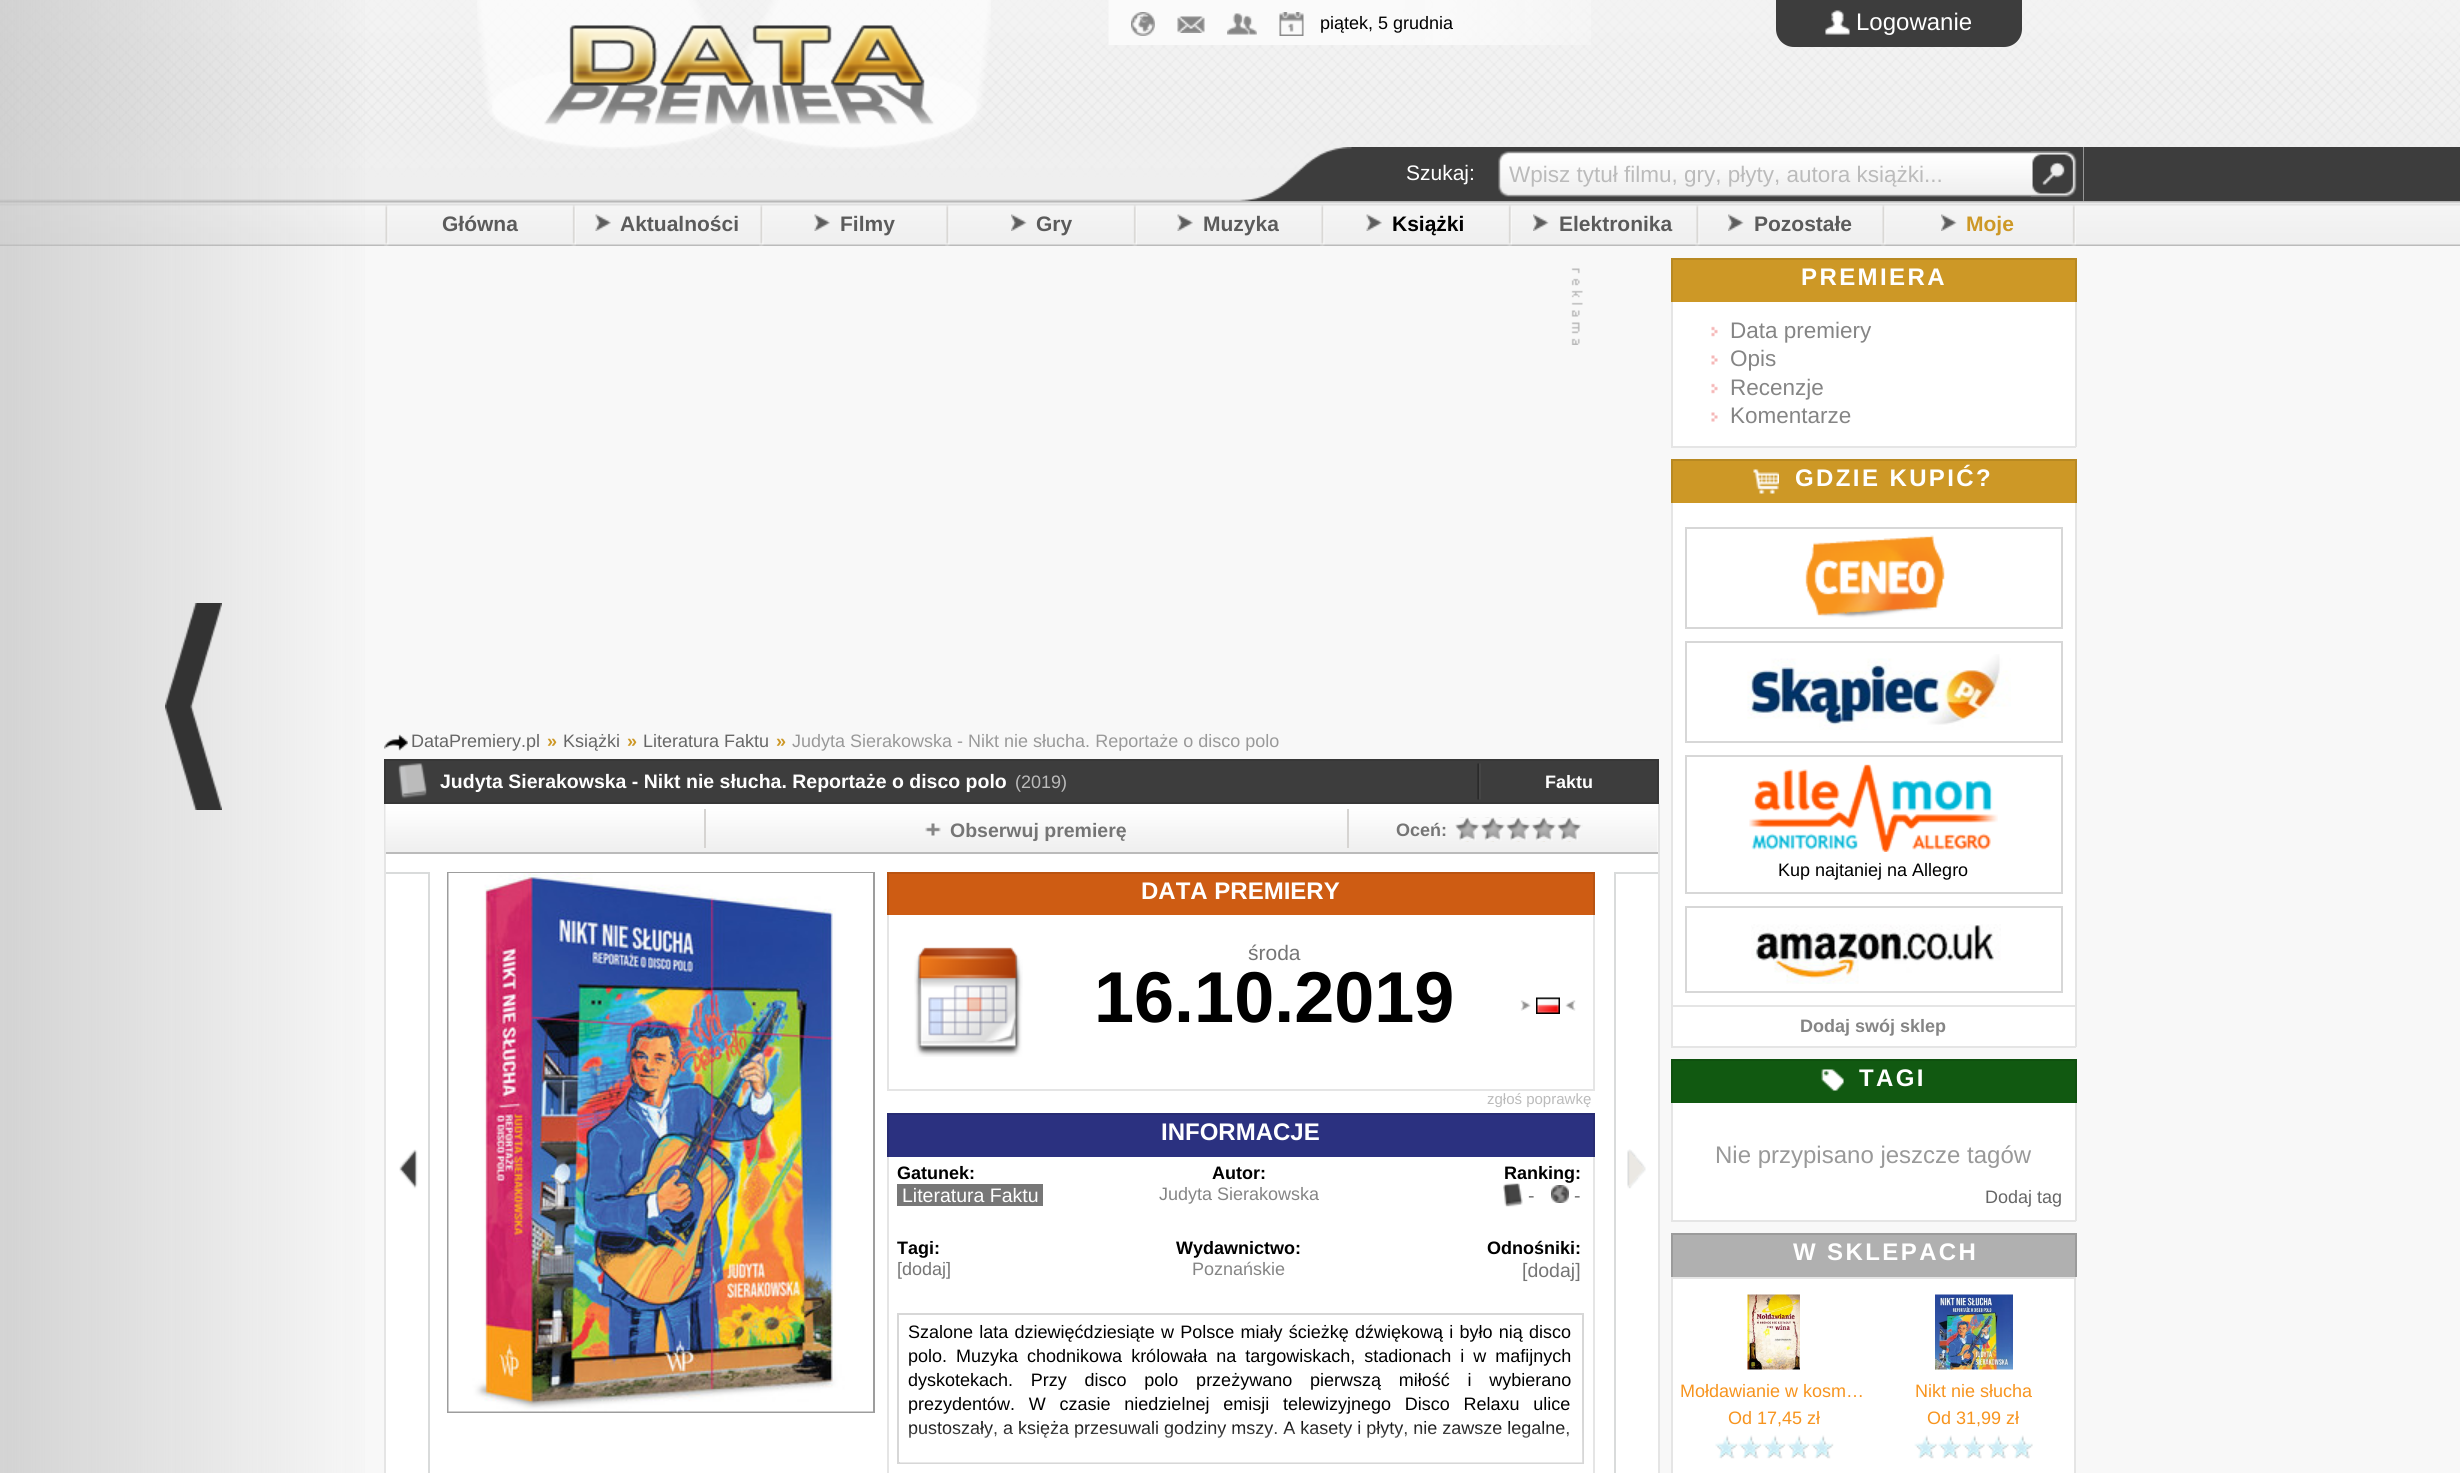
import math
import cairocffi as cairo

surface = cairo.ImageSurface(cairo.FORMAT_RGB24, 2460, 1473)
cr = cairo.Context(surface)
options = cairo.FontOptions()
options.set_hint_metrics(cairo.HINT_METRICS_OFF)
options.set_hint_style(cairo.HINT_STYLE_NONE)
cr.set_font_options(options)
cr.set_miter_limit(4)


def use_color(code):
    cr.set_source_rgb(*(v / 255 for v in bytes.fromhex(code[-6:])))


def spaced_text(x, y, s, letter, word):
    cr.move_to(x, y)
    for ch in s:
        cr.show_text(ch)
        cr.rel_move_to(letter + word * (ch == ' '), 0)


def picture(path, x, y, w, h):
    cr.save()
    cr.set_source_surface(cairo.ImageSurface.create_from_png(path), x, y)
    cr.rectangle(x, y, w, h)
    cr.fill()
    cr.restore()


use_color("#f8f8f8")
cr.paint()
picture("img2.png", 0, 0, 2460, 246)
gradient = cairo.LinearGradient(0, 737, 387, 737)
gradient.add_color_stop_rgba(0, 0.753, 0.753, 0.753, 0.65)
gradient.add_color_stop_rgba(1, 0.753, 0.753, 0.753, 0)
cr.set_source(gradient)
cr.rectangle(0, 0, 365, 1473)
cr.fill()
picture("img1.png", 165, 603, 57, 207)
picture("img3.png", 477, 0, 514, 149)
picture("img4.png", 1108, 0, 483, 45)
picture("img5.png", 1131, 12, 24, 24)
picture("img6.png", 1177, 16, 28, 17)
picture("img7.png", 1227, 13, 30, 22)
picture("img8.png", 1279, 12, 25, 24)
cr.select_font_face("Liberation Sans")
cr.set_font_size(18)
use_color("#000000")
cr.move_to(1320, 29)
cr.show_text("piątek, 5 grudnia")
use_color("#3d3d3d")
cr.new_path()
cr.move_to(1776, 0)
cr.line_to(2022, 0)
cr.line_to(2022, 29)
cr.curve_to(2022, 39, 2014, 47, 2004, 47)
cr.line_to(1794, 47)
cr.curve_to(1784, 47, 1776, 39, 1776, 29)
cr.close_path()
cr.fill()
picture("img9.png", 1825, 10, 25, 25)
cr.set_font_size(24)
use_color("#ffffff")
cr.move_to(1856, 30)
cr.show_text("Logowanie")
picture("img10.png", 1240, 147, 844, 54)
cr.set_font_size(21)
cr.move_to(1406, 180)
cr.show_text("Szukaj:")
cr.set_font_size(22.5)
use_color("#bbbbbb")
cr.move_to(1509, 182)
cr.show_text("Wpisz tytuł filmu, gry, płyty, autora książki...")
picture("img11.png", 2031, 151, 45, 46)
use_color("#3d3d3d")
cr.rectangle(2084, 147, 376, 54)
cr.fill()
picture("img12.png", 384, 205, 5, 41)
cr.select_font_face("Liberation Sans", cairo.FONT_SLANT_NORMAL, cairo.FONT_WEIGHT_BOLD)
cr.set_font_size(21)
use_color("#5b5b5b")
cr.move_to(442, 231)
cr.show_text("Główna")
picture("img13.png", 571, 205, 5, 41)
picture("img14.png", 595, 214, 16, 17)
cr.move_to(620, 231)
cr.show_text("Aktualności")
picture("img12.png", 759, 205, 5, 41)
picture("img15.png", 814, 214, 16, 17)
cr.move_to(840, 231)
cr.show_text("Filmy")
picture("img16.png", 945, 205, 5, 41)
picture("img17.png", 1011, 214, 16, 17)
cr.move_to(1036, 231)
cr.show_text("Gry")
picture("img13.png", 1132, 205, 5, 41)
picture("img14.png", 1177, 214, 16, 17)
cr.move_to(1203, 231)
cr.show_text("Muzyka")
picture("img12.png", 1320, 205, 5, 41)
picture("img14.png", 1366, 214, 16, 17)
use_color("#000000")
cr.move_to(1392, 231)
cr.show_text("Książki")
picture("img13.png", 1507, 205, 5, 41)
picture("img17.png", 1533, 214, 16, 17)
use_color("#5b5b5b")
cr.move_to(1559, 231)
cr.show_text("Elektronika")
picture("img16.png", 1695, 205, 5, 41)
picture("img17.png", 1728, 214, 16, 17)
cr.move_to(1754, 231)
cr.show_text("Pozostałe")
picture("img12.png", 1881, 205, 5, 41)
picture("img18.png", 1941, 214, 16, 17)
use_color("#cd9826")
cr.move_to(1966, 231)
cr.show_text("Moje")
picture("img13.png", 2071, 205, 5, 41)
picture("img19.png", 1571, 268, 12, 77)
picture("img20.png", 384, 734, 24, 17)
cr.select_font_face("Liberation Sans")
cr.set_font_size(18)
use_color("#666666")
cr.move_to(411, 747)
cr.show_text("DataPremiery.pl")
cr.select_font_face("Liberation Sans", cairo.FONT_SLANT_NORMAL, cairo.FONT_WEIGHT_BOLD)
use_color("#cd9826")
cr.move_to(547, 747)
cr.show_text("»")
cr.select_font_face("Liberation Sans")
use_color("#666666")
cr.move_to(563, 747)
cr.show_text("Książki")
cr.select_font_face("Liberation Sans", cairo.FONT_SLANT_NORMAL, cairo.FONT_WEIGHT_BOLD)
use_color("#cd9826")
cr.move_to(627, 747)
cr.show_text("»")
cr.select_font_face("Liberation Sans")
use_color("#666666")
cr.move_to(643, 747)
cr.show_text("Literatura Faktu")
cr.select_font_face("Liberation Sans", cairo.FONT_SLANT_NORMAL, cairo.FONT_WEIGHT_BOLD)
use_color("#cd9826")
cr.move_to(776, 747)
cr.show_text("»")
cr.select_font_face("Liberation Sans")
use_color("#999999")
cr.move_to(792, 747)
cr.show_text("Judyta Sierakowska - Nikt nie słucha. Reportaże o disco polo")
use_color("#3d3d3d")
cr.rectangle(385, 760, 1273, 43)
cr.fill_preserve()
use_color("#373737")
cr.stroke()
picture("img21.png", 398, 763, 29, 36)
cr.select_font_face("Liberation Sans", cairo.FONT_SLANT_NORMAL, cairo.FONT_WEIGHT_BOLD)
cr.set_font_size(19.5)
use_color("#ffffff")
cr.move_to(440, 788)
cr.show_text("Judyta Sierakowska - Nikt nie słucha. Reportaże o disco polo")
cr.select_font_face("Liberation Sans")
cr.set_font_size(18)
use_color("#bbbbbb")
cr.move_to(1015, 788)
cr.show_text("(2019)")
picture("img22.png", 1477, 763, 4, 37)
cr.select_font_face("Liberation Sans", cairo.FONT_SLANT_NORMAL, cairo.FONT_WEIGHT_BOLD)
use_color("#ffffff")
cr.move_to(1545, 788)
cr.show_text("Faktu")
cr.rectangle(386, 804, 1272, 669)
cr.fill()
use_color("#e5e5e5")
cr.rectangle(1658, 804, 2, 669)
cr.fill()
cr.rectangle(384, 804, 2, 669)
cr.fill()
picture("img23.png", 385, 804, 1273, 48)
use_color("#bbbbbb")
cr.rectangle(386, 852, 1272, 2)
cr.fill()
use_color("#d6d4d2")
cr.rectangle(704, 809, 2, 39)
cr.fill()
picture("img24.png", 925, 823, 16, 13)
cr.set_font_size(19.5)
use_color("#757575")
cr.move_to(950, 837)
cr.show_text("Obserwuj premierę")
use_color("#d6d4d2")
cr.rectangle(1347, 809, 2, 39)
cr.fill()
cr.set_font_size(18)
use_color("#757575")
cr.move_to(1396, 836)
cr.show_text("Oceń:")
picture("img25.png", 1455, 817, 128, 25)
use_color("#d9dbdb")
cr.rectangle(386, 872, 43, 2)
cr.fill()
cr.rectangle(428, 872, 2, 601)
cr.fill()
picture("img26.png", 399, 1149, 19, 40)
cr.rectangle(448, 873, 426, 539)
use_color("#9d9d9d")
cr.stroke()
picture("img27.png", 448, 873, 425, 539)
use_color("#ce5c13")
cr.rectangle(889, 874, 704, 41)
cr.fill()
use_color("#b95311")
cr.rectangle(887, 872, 708, 2)
cr.fill()
cr.rectangle(1593, 872, 2, 43)
cr.fill()
cr.rectangle(887, 872, 2, 43)
cr.fill()
cr.set_font_size(24)
use_color("#ffffff")
cr.move_to(1141, 899)
cr.show_text("DATA PREMIERY")
use_color("#e5e5e5")
cr.rectangle(1593, 915, 2, 176)
cr.fill()
cr.rectangle(887, 1089, 708, 2)
cr.fill()
cr.rectangle(887, 915, 2, 176)
cr.fill()
picture("img28.png", 914, 947, 109, 110)
cr.select_font_face("Liberation Sans")
cr.set_font_size(21)
use_color("#757575")
cr.move_to(1248, 960)
cr.show_text("środa")
cr.select_font_face("Liberation Sans", cairo.FONT_SLANT_NORMAL, cairo.FONT_WEIGHT_BOLD)
cr.set_font_size(72)
use_color("#000000")
cr.move_to(1094, 1022)
cr.show_text("16.10.2019")
picture("img29.png", 1520, 1000, 56, 11)
picture("img30.png", 1536, 997, 24, 17)
cr.select_font_face("Liberation Sans")
cr.set_font_size(15)
use_color("#bbbbbb")
cr.move_to(1487, 1104)
cr.show_text("zgłoś poprawkę")
use_color("#2b3180")
cr.rectangle(889, 1115, 704, 42)
cr.fill()
use_color("#272c73")
cr.rectangle(887, 1113, 708, 2)
cr.fill()
cr.rectangle(1593, 1113, 2, 44)
cr.fill()
cr.rectangle(887, 1113, 2, 44)
cr.fill()
cr.select_font_face("Liberation Sans", cairo.FONT_SLANT_NORMAL, cairo.FONT_WEIGHT_BOLD)
cr.set_font_size(24)
use_color("#ffffff")
cr.move_to(1161, 1140)
cr.show_text("INFORMACJE")
use_color("#e5e5e5")
cr.rectangle(1593, 1157, 2, 316)
cr.fill()
cr.rectangle(887, 1157, 2, 316)
cr.fill()
cr.set_font_size(18)
use_color("#000000")
cr.move_to(897, 1179)
cr.show_text("Gatunek:")
use_color("#777777")
cr.rectangle(897, 1184, 146, 22)
cr.fill()
cr.select_font_face("Liberation Sans")
cr.set_font_size(19.5)
use_color("#ffffff")
cr.move_to(902, 1202)
cr.show_text("Literatura Faktu")
cr.select_font_face("Liberation Sans", cairo.FONT_SLANT_NORMAL, cairo.FONT_WEIGHT_BOLD)
cr.set_font_size(18)
use_color("#000000")
cr.move_to(1212, 1179)
cr.show_text("Autor:")
cr.select_font_face("Liberation Sans")
use_color("#858585")
cr.move_to(1159, 1200)
cr.show_text("Judyta Sierakowska")
cr.select_font_face("Liberation Sans", cairo.FONT_SLANT_NORMAL, cairo.FONT_WEIGHT_BOLD)
use_color("#000000")
cr.move_to(1504, 1179)
cr.show_text("Ranking:")
picture("img31.png", 1503, 1183, 20, 24)
cr.select_font_face("Liberation Sans")
cr.set_font_size(19.5)
use_color("#757575")
cr.move_to(1528, 1202)
cr.show_text("-")
picture("img32.png", 1551, 1185, 18, 18)
cr.move_to(1574, 1202)
cr.show_text("-")
cr.select_font_face("Liberation Sans", cairo.FONT_SLANT_NORMAL, cairo.FONT_WEIGHT_BOLD)
cr.set_font_size(18)
use_color("#000000")
cr.move_to(897, 1254)
cr.show_text("Tagi:")
cr.select_font_face("Liberation Sans")
use_color("#757575")
cr.move_to(897, 1275)
cr.show_text("[dodaj]")
cr.select_font_face("Liberation Sans", cairo.FONT_SLANT_NORMAL, cairo.FONT_WEIGHT_BOLD)
use_color("#000000")
cr.move_to(1176, 1254)
cr.show_text("Wydawnictwo:")
cr.select_font_face("Liberation Sans")
use_color("#858585")
cr.move_to(1192, 1275)
cr.show_text("Poznańskie")
cr.select_font_face("Liberation Sans", cairo.FONT_SLANT_NORMAL, cairo.FONT_WEIGHT_BOLD)
use_color("#000000")
cr.move_to(1487, 1254)
cr.show_text("Odnośniki:")
cr.select_font_face("Liberation Sans")
cr.set_font_size(19.5)
use_color("#757575")
cr.move_to(1522, 1277)
cr.show_text("[dodaj]")
cr.rectangle(898, 1314, 685, 149)
use_color("#d7d7d7")
cr.stroke()
cr.set_font_size(18)
use_color("#000000")
spaced_text(908, 1338, "Szalone lata dziewięćdziesiąte w Polsce miały ścieżkę dźwiękową i było nią disco", 0, 1.25)
spaced_text(908, 1362, "polo. Muzyka chodnikowa królowała na targowiskach, stadionach i w mafijnych", 0, 4)
spaced_text(908, 1386, "dyskotekach. Przy disco polo przeżywano pierwszą miłość i wybierano", 0, 12.75)
spaced_text(908, 1410, "prezydentów. W czasie niedzielnej emisji telewizyjnego Disco Relaxu ulice", 0, 8.75)
cr.move_to(908, 1434)
cr.show_text("pustoszały, a księża przesuwali godziny mszy. A kasety i płyty, nie zawsze legalne,")
picture("img33.png", 900, 1421, 683, 42)
use_color("#d9dbdb")
cr.rectangle(1614, 872, 44, 2)
cr.fill()
cr.rectangle(1614, 872, 2, 601)
cr.fill()
picture("img34.png", 1627, 1149, 19, 40)
use_color("#ffffff")
cr.rectangle(1673, 302, 402, 144)
cr.fill()
use_color("#cd9826")
cr.rectangle(1673, 260, 402, 42)
cr.fill()
use_color("#b88922")
cr.rectangle(1671, 258, 405, 2)
cr.fill()
cr.rectangle(2075, 258, 2, 44)
cr.fill()
cr.rectangle(1671, 258, 2, 44)
cr.fill()
cr.select_font_face("Liberation Sans", cairo.FONT_SLANT_NORMAL, cairo.FONT_WEIGHT_BOLD)
cr.set_font_size(24)
use_color("#ffffff")
spaced_text(1801, 285, "PREMIERA", 2.4, 0)
use_color("#e5e5e5")
cr.rectangle(2075, 302, 2, 145)
cr.fill()
cr.rectangle(1671, 446, 405, 2)
cr.fill()
cr.rectangle(1671, 302, 2, 145)
cr.fill()
picture("img35.png", 1711, 326, 7, 11)
cr.select_font_face("Liberation Sans")
cr.set_font_size(22.5)
use_color("#858585")
cr.move_to(1730, 338)
cr.show_text("Data premiery")
picture("img36.png", 1711, 355, 7, 10)
cr.move_to(1730, 366)
cr.show_text("Opis")
picture("img35.png", 1711, 383, 7, 11)
cr.move_to(1730, 395)
cr.show_text("Recenzje")
picture("img36.png", 1711, 412, 7, 10)
cr.move_to(1730, 423)
cr.show_text("Komentarze")
use_color("#ffffff")
cr.rectangle(1673, 503, 402, 543)
cr.fill()
use_color("#cd9826")
cr.rectangle(1673, 461, 402, 42)
cr.fill()
use_color("#b88922")
cr.rectangle(1671, 459, 405, 2)
cr.fill()
cr.rectangle(2075, 459, 2, 44)
cr.fill()
cr.rectangle(1671, 459, 2, 44)
cr.fill()
picture("img37.png", 1753, 469, 26, 25)
cr.select_font_face("Liberation Sans", cairo.FONT_SLANT_NORMAL, cairo.FONT_WEIGHT_BOLD)
cr.set_font_size(24)
use_color("#ffffff")
spaced_text(1795, 486, "GDZIE KUPIĆ?", 2.4, 0)
use_color("#e5e5e5")
cr.rectangle(2075, 503, 2, 544)
cr.fill()
cr.rectangle(1671, 1005, 405, 2)
cr.fill()
cr.rectangle(1671, 503, 2, 504)
cr.fill()
cr.rectangle(1686, 528, 376, 100)
use_color("#d7d7d7")
cr.stroke()
picture("img38.png", 1805, 535, 140, 83)
cr.rectangle(1686, 642, 376, 100)
cr.stroke()
picture("img39.png", 1747, 654, 264, 76)
cr.rectangle(1686, 756, 376, 137)
cr.stroke()
picture("img40.png", 1749, 764, 249, 88)
cr.select_font_face("Liberation Sans")
cr.set_font_size(18)
use_color("#000000")
cr.move_to(1778, 876)
cr.show_text("Kup najtaniej na Allegro")
cr.rectangle(1686, 907, 376, 85)
use_color("#d7d7d7")
cr.stroke()
picture("img41.png", 1751, 924, 250, 60)
use_color("#e5e5e5")
cr.rectangle(1671, 1046, 405, 2)
cr.fill()
cr.rectangle(1671, 1007, 2, 40)
cr.fill()
cr.select_font_face("Liberation Sans", cairo.FONT_SLANT_NORMAL, cairo.FONT_WEIGHT_BOLD)
use_color("#858585")
cr.move_to(1800, 1032)
cr.show_text("Dodaj swój sklep")
use_color("#ffffff")
cr.rectangle(1673, 1103, 402, 117)
cr.fill()
use_color("#115911")
cr.rectangle(1673, 1061, 402, 42)
cr.fill()
use_color("#0f500f")
cr.rectangle(1671, 1059, 405, 2)
cr.fill()
cr.rectangle(2075, 1059, 2, 44)
cr.fill()
cr.rectangle(1671, 1059, 2, 44)
cr.fill()
picture("img42.png", 1821, 1069, 23, 22)
cr.set_font_size(24)
use_color("#ffffff")
spaced_text(1859, 1086, "TAGI", 2.4, 0)
use_color("#e5e5e5")
cr.rectangle(2075, 1103, 2, 118)
cr.fill()
cr.rectangle(1671, 1220, 405, 2)
cr.fill()
cr.rectangle(1671, 1103, 2, 118)
cr.fill()
cr.select_font_face("Liberation Sans")
use_color("#999999")
cr.move_to(1715, 1163)
cr.show_text("Nie przypisano jeszcze tagów")
cr.set_font_size(18)
use_color("#666666")
cr.move_to(1985, 1203)
cr.show_text("Dodaj tag")
use_color("#b0b0b0")
cr.rectangle(1673, 1235, 402, 42)
cr.fill()
use_color("#9b9b9b")
cr.rectangle(1671, 1233, 405, 2)
cr.fill()
cr.rectangle(2075, 1233, 2, 44)
cr.fill()
cr.rectangle(1671, 1233, 2, 44)
cr.fill()
cr.select_font_face("Liberation Sans", cairo.FONT_SLANT_NORMAL, cairo.FONT_WEIGHT_BOLD)
cr.set_font_size(24)
use_color("#ffffff")
spaced_text(1793, 1260, "W SKLEPACH", 2.4, 0)
cr.rectangle(1672, 1278, 403, 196)
cr.fill_preserve()
use_color("#e5e5e5")
cr.stroke()
picture("img43.png", 1747, 1294, 53, 76)
cr.select_font_face("Liberation Sans")
cr.set_font_size(18)
use_color("#f7941e")
cr.move_to(1680, 1397)
cr.show_text("Mołdawianie w kosm…")
cr.move_to(1728, 1424)
cr.show_text("Od 17,45 zł")
picture("img44.png", 1715, 1435, 119, 24)
picture("img45.png", 1935, 1294, 78, 76)
cr.move_to(1915, 1397)
cr.show_text("Nikt nie słucha")
cr.move_to(1927, 1424)
cr.show_text("Od 31,99 zł")
picture("img46.png", 1914, 1435, 119, 24)
surface.write_to_png("result.png")
